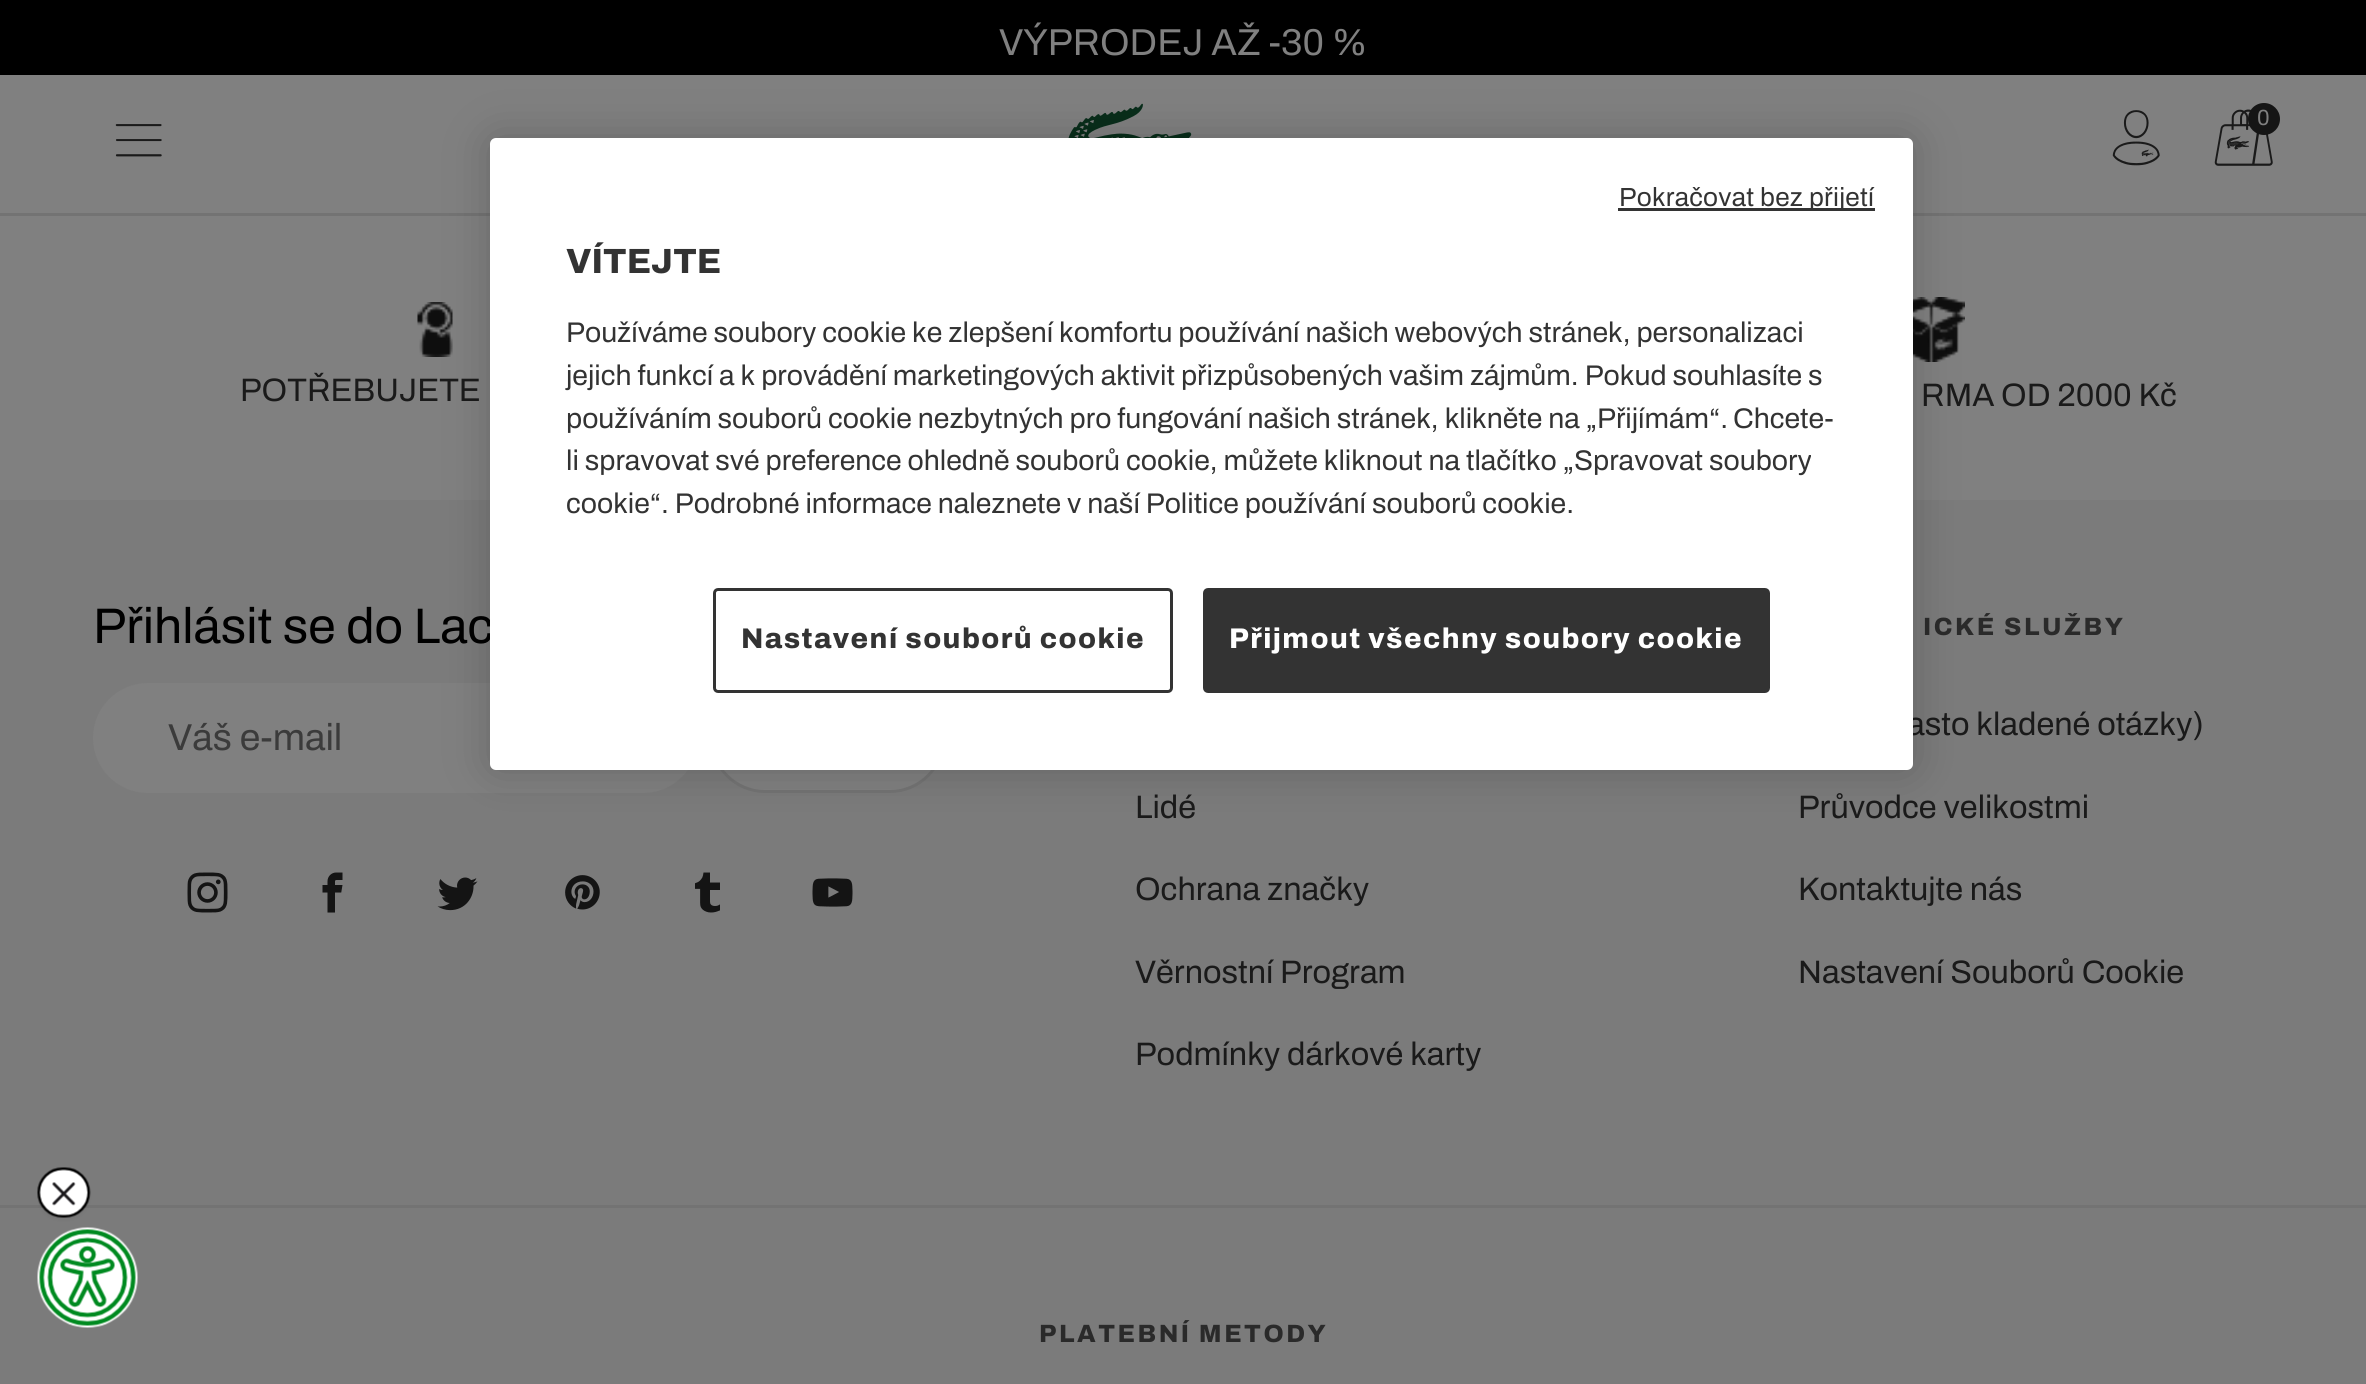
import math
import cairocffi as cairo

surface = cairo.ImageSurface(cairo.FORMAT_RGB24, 2366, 1384)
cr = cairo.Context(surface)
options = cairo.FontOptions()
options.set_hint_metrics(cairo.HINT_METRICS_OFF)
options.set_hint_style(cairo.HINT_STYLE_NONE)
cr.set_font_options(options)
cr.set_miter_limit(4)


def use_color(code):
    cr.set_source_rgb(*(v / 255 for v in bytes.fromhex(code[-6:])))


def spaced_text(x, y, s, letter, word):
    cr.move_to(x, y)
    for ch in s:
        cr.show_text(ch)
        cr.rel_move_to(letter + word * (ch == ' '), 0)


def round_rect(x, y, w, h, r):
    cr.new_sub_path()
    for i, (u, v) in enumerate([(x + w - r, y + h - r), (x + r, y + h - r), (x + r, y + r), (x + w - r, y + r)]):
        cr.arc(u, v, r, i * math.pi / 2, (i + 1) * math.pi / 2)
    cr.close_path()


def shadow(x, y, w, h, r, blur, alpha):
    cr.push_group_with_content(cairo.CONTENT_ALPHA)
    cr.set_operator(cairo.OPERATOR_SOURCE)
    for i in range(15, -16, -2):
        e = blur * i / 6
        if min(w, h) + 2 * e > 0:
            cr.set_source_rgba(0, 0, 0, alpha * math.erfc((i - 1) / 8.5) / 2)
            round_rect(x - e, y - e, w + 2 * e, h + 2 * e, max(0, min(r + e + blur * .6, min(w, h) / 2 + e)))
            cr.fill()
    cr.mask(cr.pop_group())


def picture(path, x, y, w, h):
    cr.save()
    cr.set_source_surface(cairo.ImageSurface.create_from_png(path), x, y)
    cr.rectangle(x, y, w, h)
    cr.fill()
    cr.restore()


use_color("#808080")
cr.paint()
use_color("#000000")
cr.rectangle(0, 0, 2366, 75)
cr.fill()
cr.select_font_face("Archivo")
cr.set_font_size(37.5)
use_color("#808080")
cr.move_to(999, 55)
cr.show_text("VÝPRODEJ AŽ -30 %")
picture("img1.png", 115, 124, 47, 33)
picture("img2.png", 1068, 103, 124, 35)
picture("img3.png", 2112, 110, 48, 56)
picture("img4.png", 2214, 109, 59, 57)
use_color("#151515")
cr.arc(2264, 119, 16, 0, 2 * math.pi)
cr.fill()
cr.set_font_size(22)
use_color("#808080")
cr.move_to(2257, 125)
cr.show_text("0")
use_color("#737373")
cr.rectangle(0, 213, 2366, 3)
cr.fill()
picture("img5.png", 417, 302, 36, 55)
cr.set_font_size(32.5)
use_color("#1a1a1a")
cr.move_to(240, 401)
cr.show_text("POTŘEBUJETE")
picture("img6.png", 1913, 297, 52, 65)
cr.move_to(1921, 406)
cr.show_text("RMA OD 2000 Kč")
use_color("#7b7b7b")
cr.rectangle(0, 500, 2366, 705)
cr.fill()
cr.set_font_size(50)
use_color("#000000")
cr.move_to(93, 643)
cr.show_text("Přihlásit se do Lac")
use_color("#808080")
round_rect(93, 683, 605, 110, 55)
cr.fill()
cr.set_font_size(37.5)
use_color("#3b3b3b")
cr.move_to(168, 750)
cr.show_text("Váš e-mail")
use_color("#808080")
round_rect(711.5, 684.5, 232, 107, 53.5)
cr.fill_preserve()
use_color("#737373")
cr.set_line_width(3)
cr.stroke()
picture("img7.png", 187, 872, 41, 41)
picture("img8.png", 322, 872, 21, 41)
picture("img9.png", 437, 877, 41, 34)
picture("img10.png", 565, 875, 35, 35)
picture("img11.png", 695, 872, 25, 41)
picture("img12.png", 812, 878, 41, 29)
cr.set_font_size(32.5)
use_color("#1a1a1a")
cr.move_to(1135, 818)
cr.show_text("Lidé")
cr.move_to(1135, 900)
cr.show_text("Ochrana značky")
cr.move_to(1135, 983)
cr.show_text("Věrnostní Program")
cr.move_to(1135, 1065)
cr.show_text("Podmínky dárkové karty")
cr.select_font_face("Archivo ExtraBold")
cr.set_font_size(25)
use_color("#2a2a2a")
spaced_text(1923, 635, "ICKÉ SLUŽBY", 2.5, 0)
cr.select_font_face("Archivo")
cr.set_font_size(32.5)
use_color("#1a1a1a")
cr.move_to(1907, 735)
cr.show_text("asto kladené otázky)")
cr.move_to(1798, 818)
cr.show_text("Průvodce velikostmi")
cr.move_to(1798, 900)
cr.show_text("Kontaktujte nás")
cr.move_to(1798, 983)
cr.show_text("Nastavení Souborů Cookie")
use_color("#7b7b7b")
cr.rectangle(0, 1208, 2366, 176)
cr.fill()
use_color("#737373")
cr.rectangle(0, 1205, 2366, 3)
cr.fill()
cr.select_font_face("Archivo ExtraBold")
cr.set_font_size(25)
use_color("#2a2a2a")
spaced_text(1039, 1342, "PLATEBNÍ METODY", 2.5, 0)
use_color("#000000")
shadow(490, 138, 1423, 632, 6, 22.5, 0.2)
use_color("#ffffff")
round_rect(490, 138, 1423, 632, 6)
cr.fill()
use_color("#333333")
cr.rectangle(1618, 208, 257, 3)
cr.fill()
cr.select_font_face("Archivo")
cr.set_font_size(26.25)
spaced_text(1619, 206, "Pokračovat bez přijetí", 0.25, 0)
cr.select_font_face("Archivo ExtraBold")
cr.set_font_size(35)
cr.move_to(566, 273)
cr.show_text("VÍTEJTE")
cr.select_font_face("Archivo")
cr.set_font_size(28.45)
cr.move_to(566, 342)
cr.show_text("Používáme soubory cookie ke zlepšení komfortu používání našich webových stránek, personalizaci")
cr.move_to(566, 385)
cr.show_text("jejich funkcí a k provádění marketingových aktivit přizpůsobených vašim zájmům. Pokud souhlasíte s")
cr.move_to(566, 428)
cr.show_text("používáním souborů cookie nezbytných pro fungování našich stránek, klikněte na „Přijímám“.")
cr.move_to(1733, 428)
cr.show_text("Chcete-")
cr.move_to(566, 470)
cr.show_text("li spravovat své preference ohledně souborů cookie, můžete kliknout na tlačítko „Spravovat soubory")
cr.move_to(566, 513)
cr.show_text("cookie“. Podrobné informace naleznete v naší Politice používání souborů cookie.")
round_rect(714.5, 589.5, 457, 102, 3.5)
cr.stroke()
cr.select_font_face("Archivo ExtraBold")
spaced_text(741, 648, "Nastavení souborů cookie", 1.4, 0)
round_rect(1204.5, 589.5, 564, 102, 3.5)
cr.fill_preserve()
cr.stroke()
use_color("#ffffff")
spaced_text(1229, 648, "Přijmout všechny soubory cookie", 1.4, 0)
picture("img13.png", 37, 1167, 101, 161)
surface.write_to_png("result.png")
